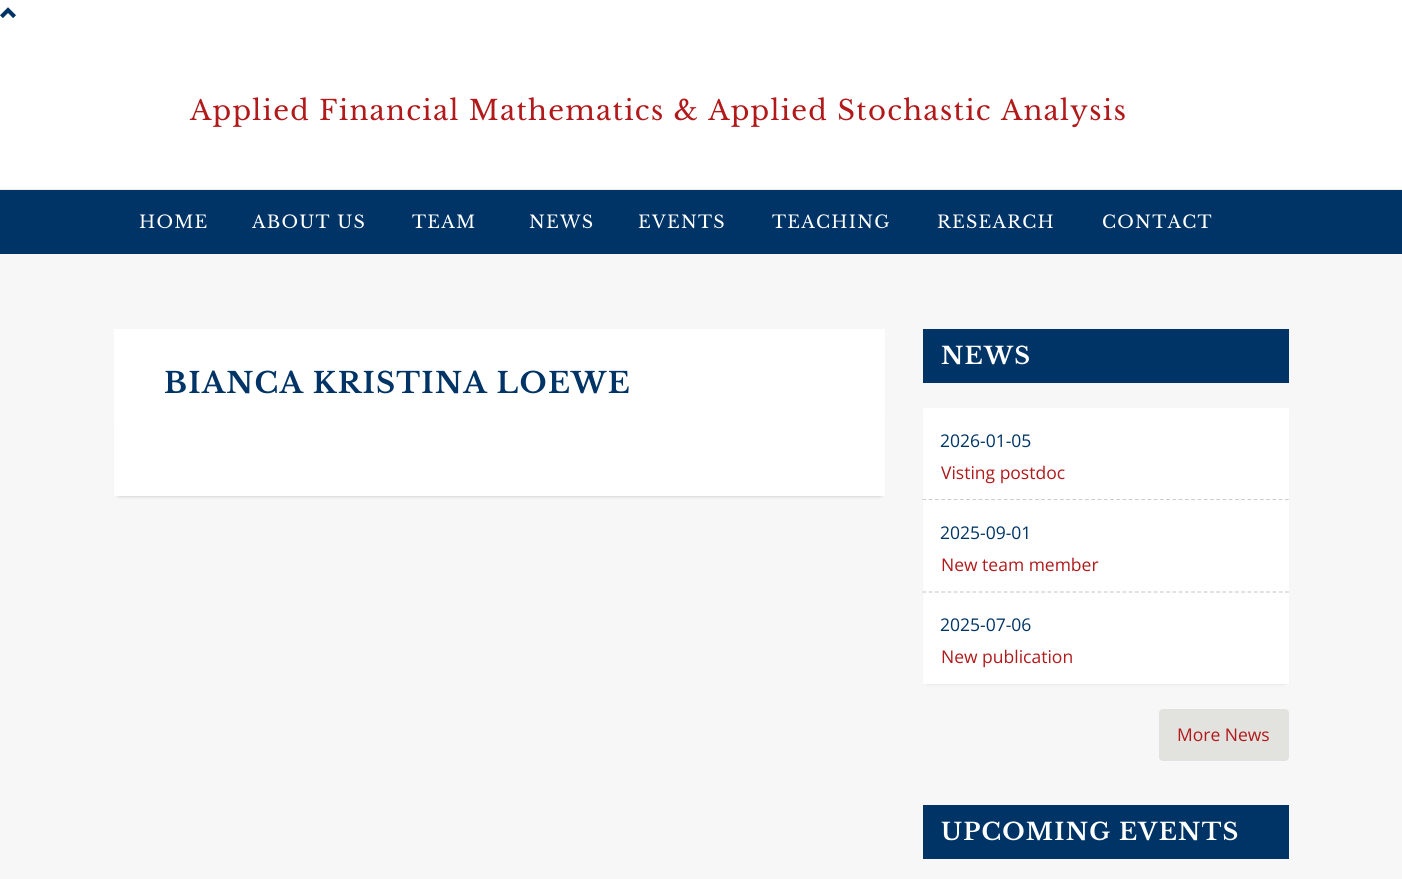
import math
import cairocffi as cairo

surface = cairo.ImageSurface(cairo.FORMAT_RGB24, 1402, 879)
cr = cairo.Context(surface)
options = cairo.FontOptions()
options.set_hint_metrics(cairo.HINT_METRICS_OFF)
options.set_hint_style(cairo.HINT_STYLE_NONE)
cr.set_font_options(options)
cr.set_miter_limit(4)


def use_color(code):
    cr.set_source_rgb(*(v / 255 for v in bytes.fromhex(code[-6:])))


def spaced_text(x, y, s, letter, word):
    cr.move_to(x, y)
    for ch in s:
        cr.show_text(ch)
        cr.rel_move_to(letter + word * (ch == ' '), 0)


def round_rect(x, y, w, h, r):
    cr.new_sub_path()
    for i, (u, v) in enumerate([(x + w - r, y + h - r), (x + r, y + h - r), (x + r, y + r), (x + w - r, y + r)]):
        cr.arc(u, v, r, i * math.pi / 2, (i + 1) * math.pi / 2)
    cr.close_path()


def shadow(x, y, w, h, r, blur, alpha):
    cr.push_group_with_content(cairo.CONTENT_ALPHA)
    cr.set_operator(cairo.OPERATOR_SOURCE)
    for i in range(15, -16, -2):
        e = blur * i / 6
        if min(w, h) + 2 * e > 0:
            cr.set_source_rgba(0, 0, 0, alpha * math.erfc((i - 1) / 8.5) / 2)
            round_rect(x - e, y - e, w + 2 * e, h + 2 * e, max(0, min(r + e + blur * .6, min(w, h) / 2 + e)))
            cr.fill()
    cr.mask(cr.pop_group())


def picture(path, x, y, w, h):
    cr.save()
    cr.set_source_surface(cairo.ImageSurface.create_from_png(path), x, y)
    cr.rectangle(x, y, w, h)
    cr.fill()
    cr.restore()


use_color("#ffffff")
cr.paint()
picture("img1.png", 0, 7, 16, 12)
use_color("#eaeaea")
cr.rectangle(0, 189, 1402, 1)
cr.fill()
cr.select_font_face("Libre Baskerville")
cr.set_font_size(27.5)
use_color("#b1191a")
spaced_text(190, 120, "Applied Financial Mathematics & Applied Stochastic Analysis", 1.25, 0)
use_color("#003466")
cr.rectangle(0, 190, 1402, 64)
cr.fill()
cr.set_font_size(17.5)
use_color("#ffffff")
spaced_text(139, 228, "HOME", 1.25, 0)
spaced_text(252, 228, "ABOUT US", 1.25, 0)
spaced_text(412, 228, "TEAM", 1.25, 0)
spaced_text(529, 228, "NEWS", 1.25, 0)
spaced_text(638, 228, "EVENTS", 1.25, 0)
spaced_text(772, 228, "TEACHING", 1.25, 0)
spaced_text(937, 228, "RESEARCH", 1.25, 0)
spaced_text(1102, 228, "CONTACT", 1.25, 0)
use_color("#f7f7f7")
cr.rectangle(0, 254, 1402, 625)
cr.fill()
use_color("#ffffff")
cr.rectangle(114, 329, 771, 85)
cr.fill()
cr.select_font_face("Libre Baskerville", cairo.FONT_SLANT_NORMAL, cairo.FONT_WEIGHT_BOLD)
cr.set_font_size(28.75)
use_color("#003466")
spaced_text(164, 393, "BIANCA KRISTINA LOEWE", 1.25, 0)
use_color("#000000")
shadow(119, 421, 761, 73, 0, 2.5, 0.6)
use_color("#ffffff")
cr.rectangle(114, 414, 771, 82)
cr.fill()
use_color("#003466")
cr.rectangle(923, 329, 366, 54)
cr.fill()
cr.set_font_size(23.75)
use_color("#ffffff")
spaced_text(941, 364, "NEWS", 1.25, 0)
use_color("#000000")
shadow(928, 415, 356, 266, 0, 2.5, 0.6)
use_color("#ffffff")
cr.rectangle(923, 408, 366, 276)
cr.fill()
cr.new_path()
cr.move_to(922.5, 499.5)
cr.line_to(1289, 499.5)
use_color("#cdcdcb")
cr.set_line_width(1.2)
cr.set_dash([3.75, 2.5])
cr.stroke()
cr.select_font_face("Open Sans")
cr.set_font_size(17.5)
use_color("#003466")
cr.move_to(940, 447)
cr.show_text("2026-01-05")
use_color("#ffffff")
cr.rectangle(923, 498, 366, 1)
cr.fill()
use_color("#b1191a")
cr.move_to(941, 479)
cr.show_text("Visting postdoc")
cr.new_path()
cr.move_to(922.5, 592)
cr.line_to(1289, 592)
use_color("#cdcdcb")
cr.stroke()
use_color("#ffffff")
cr.rectangle(923, 500, 366, 1)
cr.fill()
use_color("#003466")
cr.move_to(940, 539)
cr.show_text("2025-09-01")
use_color("#b1191a")
cr.move_to(941, 571)
cr.show_text("New team member")
use_color("#003466")
cr.move_to(940, 631)
cr.show_text("2025-07-06")
use_color("#b1191a")
cr.move_to(941, 663)
cr.show_text("New publication")
use_color("#e2e2df")
round_rect(1159, 709, 130, 52, 4)
cr.fill()
use_color("#b1191a")
cr.move_to(1177, 741)
cr.show_text("More News")
use_color("#003466")
cr.rectangle(923, 805, 366, 54)
cr.fill()
cr.select_font_face("Libre Baskerville", cairo.FONT_SLANT_NORMAL, cairo.FONT_WEIGHT_BOLD)
cr.set_font_size(23.75)
use_color("#ffffff")
spaced_text(941, 840, "UPCOMING EVENTS", 1.25, 0)
surface.write_to_png("result.png")
